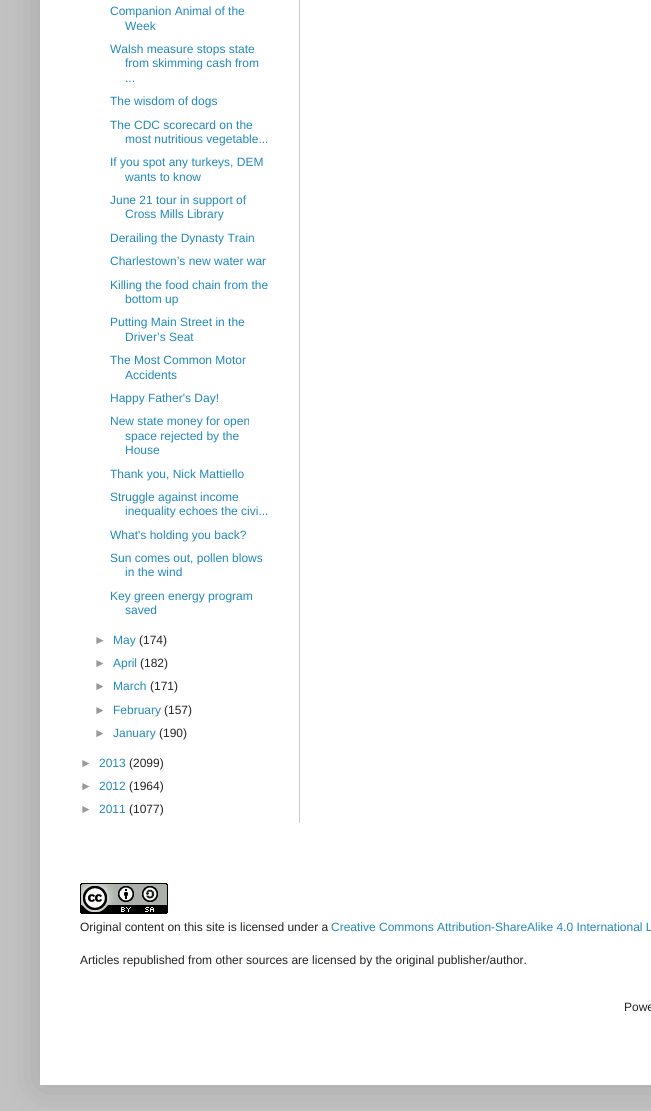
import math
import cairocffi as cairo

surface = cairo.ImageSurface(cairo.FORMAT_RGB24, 651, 1111)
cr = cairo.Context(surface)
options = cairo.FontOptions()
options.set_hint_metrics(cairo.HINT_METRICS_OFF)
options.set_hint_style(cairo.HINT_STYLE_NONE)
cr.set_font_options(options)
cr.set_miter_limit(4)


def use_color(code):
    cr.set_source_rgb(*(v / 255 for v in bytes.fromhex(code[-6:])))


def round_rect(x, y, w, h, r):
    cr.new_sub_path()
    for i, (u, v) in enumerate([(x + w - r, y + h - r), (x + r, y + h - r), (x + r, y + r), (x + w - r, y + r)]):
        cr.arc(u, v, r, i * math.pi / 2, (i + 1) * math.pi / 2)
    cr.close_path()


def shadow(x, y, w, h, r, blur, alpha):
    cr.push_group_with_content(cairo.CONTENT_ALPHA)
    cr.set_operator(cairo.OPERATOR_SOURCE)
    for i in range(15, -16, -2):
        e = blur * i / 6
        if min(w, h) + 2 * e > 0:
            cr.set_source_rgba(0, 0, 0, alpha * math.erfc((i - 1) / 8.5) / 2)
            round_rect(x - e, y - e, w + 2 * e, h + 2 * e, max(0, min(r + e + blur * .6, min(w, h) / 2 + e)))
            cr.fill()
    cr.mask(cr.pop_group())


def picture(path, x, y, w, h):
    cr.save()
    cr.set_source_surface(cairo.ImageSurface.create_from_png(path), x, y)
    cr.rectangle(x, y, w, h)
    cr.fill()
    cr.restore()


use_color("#c2c2c2")
cr.paint()
use_color("#000000")
shadow(40, -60, 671, 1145, 0, 20, 0.15)
use_color("#ffffff")
cr.rectangle(40, 0, 611, 1085)
cr.fill()
cr.select_font_face("Liberation Sans")
cr.set_font_size(12)
use_color("#2288bb")
cr.move_to(110, 15)
cr.show_text("Companion Animal of the")
cr.move_to(125, 30)
cr.show_text("Week")
cr.move_to(110, 53)
cr.show_text("Walsh measure stops state")
cr.move_to(125, 67)
cr.show_text("from skimming cash from")
cr.move_to(125, 82)
cr.show_text("...")
cr.move_to(110, 105)
cr.show_text("The wisdom of dogs")
cr.move_to(110, 129)
cr.show_text("The CDC scorecard on the")
cr.move_to(125, 143)
cr.show_text("most nutritious vegetable...")
cr.move_to(110, 166)
cr.show_text("If you spot any turkeys, DEM")
cr.move_to(125, 181)
cr.show_text("wants to know")
cr.move_to(110, 204)
cr.show_text("June 21 tour in support of")
cr.move_to(125, 218)
cr.show_text("Cross Mills Library")
cr.move_to(110, 242)
cr.show_text("Derailing the Dynasty Train")
cr.move_to(110, 265)
cr.show_text("Charlestown’s new water war")
cr.move_to(110, 289)
cr.show_text("Killing the food chain from the")
cr.move_to(125, 303)
cr.show_text("bottom up")
cr.move_to(110, 326)
cr.show_text("Putting Main Street in the")
cr.move_to(125, 341)
cr.show_text("Driver’s Seat")
cr.move_to(110, 364)
cr.show_text("The Most Common Motor")
cr.move_to(125, 379)
cr.show_text("Accidents")
cr.move_to(110, 402)
cr.show_text("Happy Father's Day!")
cr.move_to(110, 425)
cr.show_text("New state money for open")
cr.move_to(125, 440)
cr.show_text("space rejected by the")
cr.move_to(125, 454)
cr.show_text("House")
cr.move_to(110, 478)
cr.show_text("Thank you, Nick Mattiello")
cr.move_to(110, 501)
cr.show_text("Struggle against income")
cr.move_to(125, 515)
cr.show_text("inequality echoes the civi...")
cr.move_to(110, 539)
cr.show_text("What's holding you back?")
cr.move_to(110, 562)
cr.show_text("Sun comes out, pollen blows")
cr.move_to(125, 576)
cr.show_text("in the wind")
cr.move_to(110, 600)
cr.show_text("Key green energy program")
cr.move_to(125, 614)
cr.show_text("saved")
use_color("#999999")
cr.move_to(94, 644)
cr.show_text("►")
use_color("#2288bb")
cr.move_to(113, 644)
cr.show_text("May")
use_color("#222222")
cr.move_to(139, 644)
cr.show_text("(174)")
use_color("#999999")
cr.move_to(94, 667)
cr.show_text("►")
use_color("#2288bb")
cr.move_to(113, 667)
cr.show_text("April")
use_color("#222222")
cr.move_to(140, 667)
cr.show_text("(182)")
use_color("#999999")
cr.move_to(94, 690)
cr.show_text("►")
use_color("#2288bb")
cr.move_to(113, 690)
cr.show_text("March")
use_color("#222222")
cr.move_to(150, 690)
cr.show_text("(171)")
use_color("#999999")
cr.move_to(94, 714)
cr.show_text("►")
use_color("#2288bb")
cr.move_to(113, 714)
cr.show_text("February")
use_color("#222222")
cr.move_to(164, 714)
cr.show_text("(157)")
use_color("#999999")
cr.move_to(94, 737)
cr.show_text("►")
use_color("#2288bb")
cr.move_to(113, 737)
cr.show_text("January")
use_color("#222222")
cr.move_to(159, 737)
cr.show_text("(190)")
use_color("#999999")
cr.move_to(80, 767)
cr.show_text("►")
use_color("#2288bb")
cr.move_to(99, 767)
cr.show_text("2013")
use_color("#222222")
cr.move_to(129, 767)
cr.show_text("(2099)")
use_color("#999999")
cr.move_to(80, 790)
cr.show_text("►")
use_color("#2288bb")
cr.move_to(99, 790)
cr.show_text("2012")
use_color("#222222")
cr.move_to(129, 790)
cr.show_text("(1964)")
use_color("#999999")
cr.move_to(80, 813)
cr.show_text("►")
use_color("#2288bb")
cr.move_to(99, 813)
cr.show_text("2011")
use_color("#222222")
cr.move_to(129, 813)
cr.show_text("(1077)")
use_color("#cccccc")
cr.rectangle(299, 0, 1, 823)
cr.fill()
picture("img1.png", 80, 883, 88, 31)
use_color("#222222")
cr.move_to(80, 931)
cr.show_text("Original content on this site is licensed under a")
use_color("#2288bb")
cr.move_to(331, 931)
cr.show_text("Creative Commons Attribution-ShareAlike 4.0 International L")
use_color("#222222")
cr.move_to(80, 964)
cr.show_text("Articles republished from other sources are licensed by the original publisher/author.")
cr.move_to(624, 1011)
cr.show_text("Powe")
surface.write_to_png("result.png")
